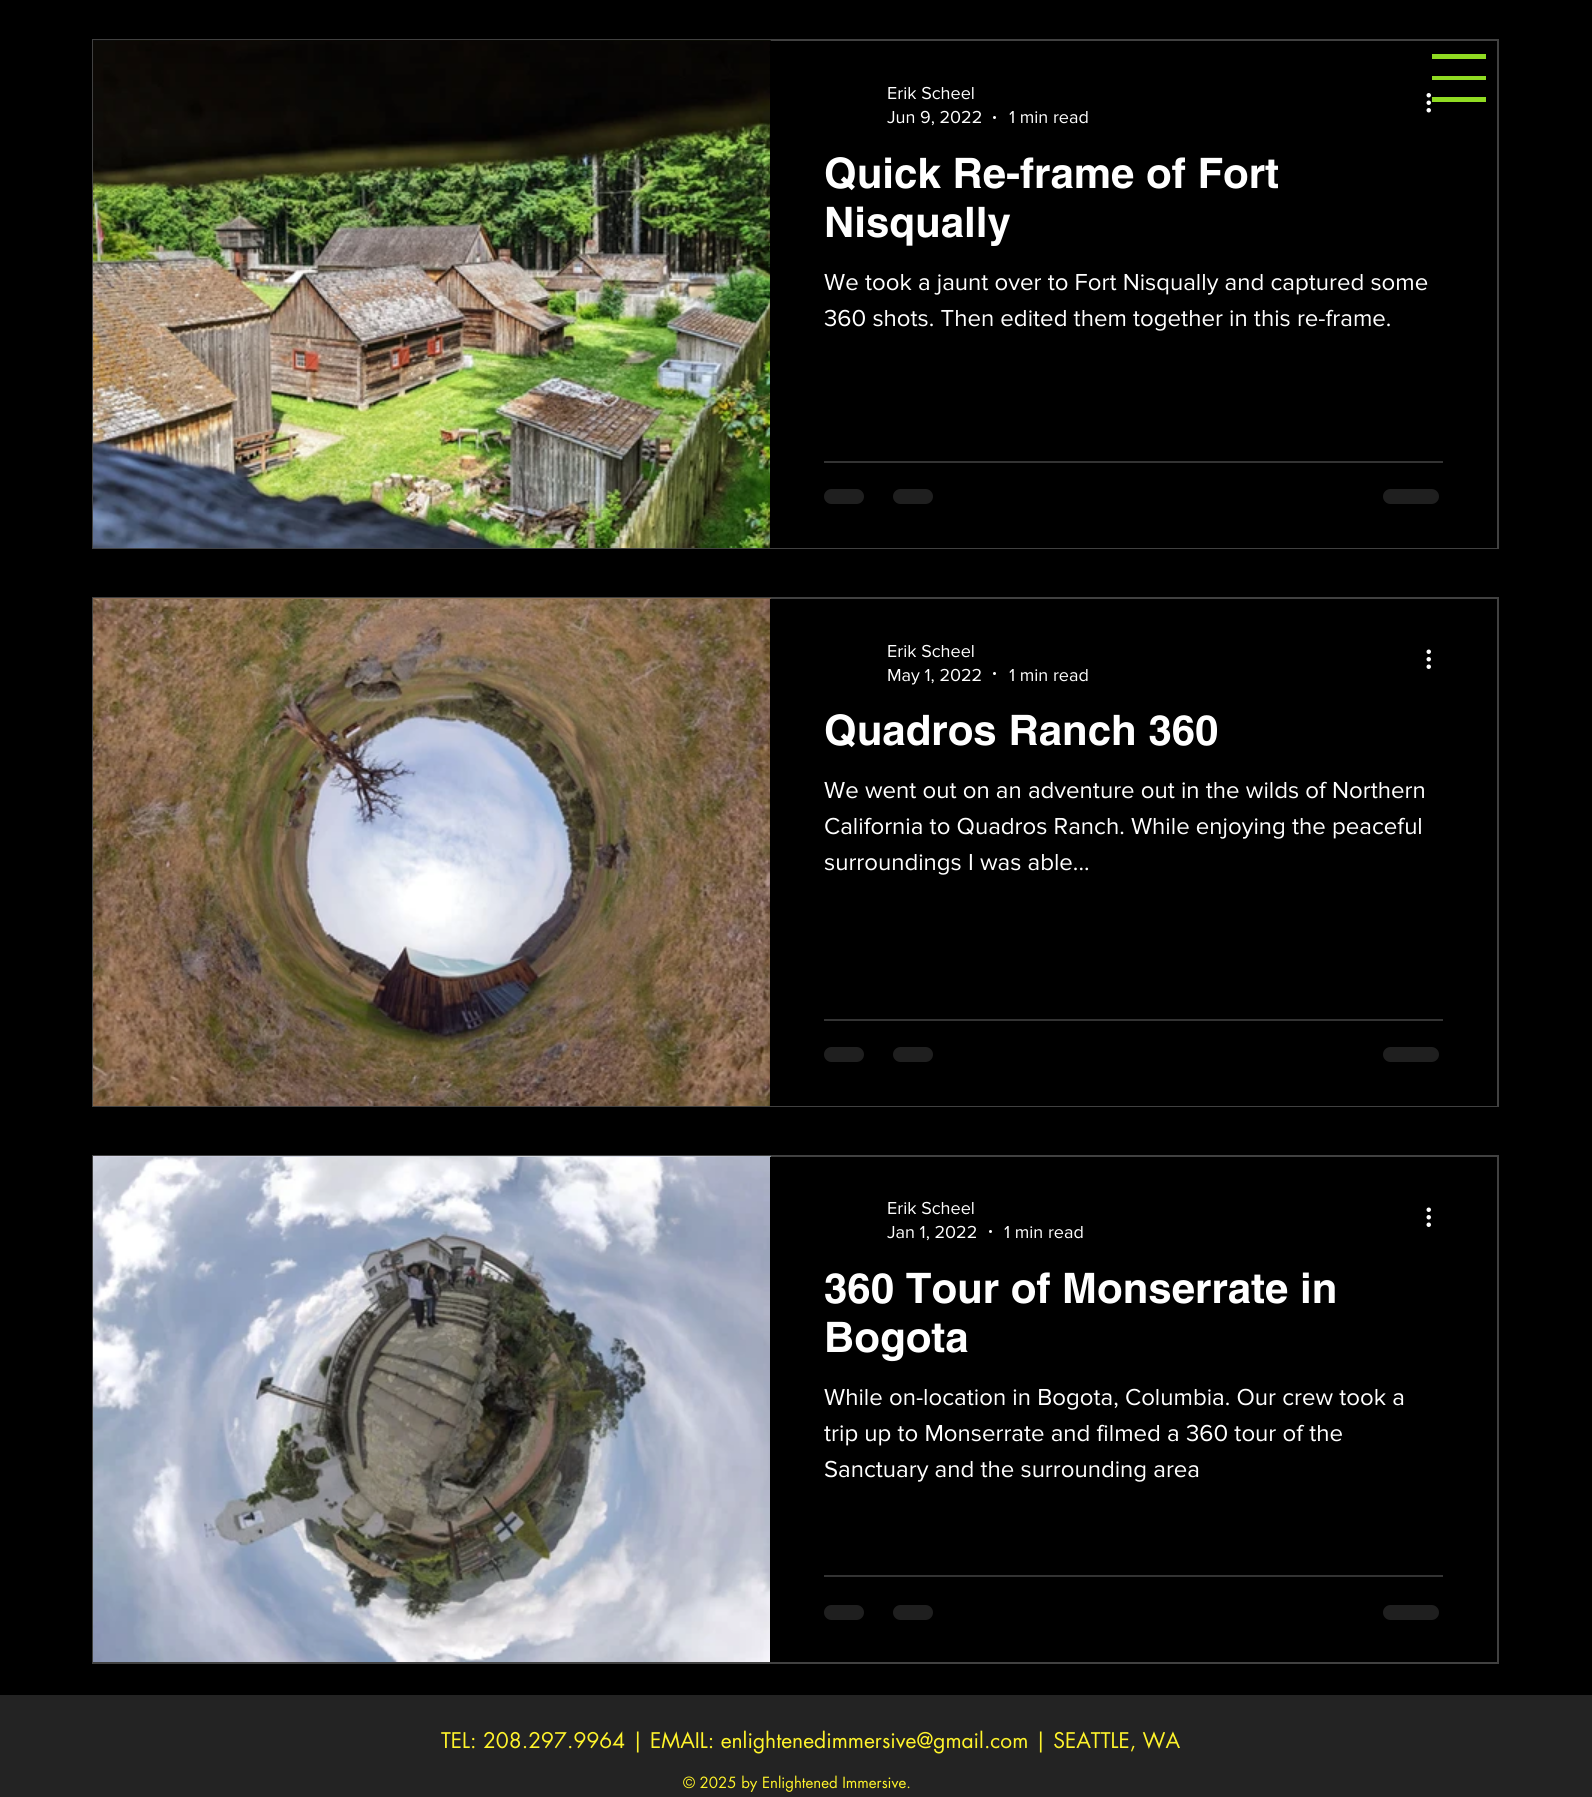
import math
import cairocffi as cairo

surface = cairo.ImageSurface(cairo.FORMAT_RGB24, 1592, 1797)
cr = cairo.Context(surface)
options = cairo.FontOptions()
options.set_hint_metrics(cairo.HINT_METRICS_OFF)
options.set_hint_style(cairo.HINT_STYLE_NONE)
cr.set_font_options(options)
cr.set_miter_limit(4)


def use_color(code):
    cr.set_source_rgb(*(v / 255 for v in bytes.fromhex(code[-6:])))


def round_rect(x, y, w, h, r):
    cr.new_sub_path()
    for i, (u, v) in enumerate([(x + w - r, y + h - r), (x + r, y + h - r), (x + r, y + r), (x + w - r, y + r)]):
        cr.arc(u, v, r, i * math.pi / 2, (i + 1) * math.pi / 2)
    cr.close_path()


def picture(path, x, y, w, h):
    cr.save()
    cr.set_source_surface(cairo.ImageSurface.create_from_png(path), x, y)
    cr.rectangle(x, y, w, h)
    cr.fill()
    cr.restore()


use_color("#000000")
cr.paint()
cr.rectangle(93, 40, 1405, 508)
use_color("#414141")
cr.stroke()
use_color("#90db22")
cr.rectangle(1432, 54, 54, 5)
cr.fill()
cr.rectangle(1432, 76, 54, 4)
cr.fill()
cr.rectangle(1432, 97, 54, 5)
cr.fill()
picture("img1.png", 93, 40, 678, 1)
picture("img2.png", 93, 41, 677, 507)
use_color("#000000")
cr.rectangle(770, 547, 727, 1)
cr.fill()
cr.select_font_face("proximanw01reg")
cr.set_font_size(18)
use_color("#ffffff")
cr.move_to(887, 99)
cr.show_text("Erik Scheel")
cr.move_to(887, 123)
cr.show_text("Jun 9, 2022")
cr.new_path()
cr.arc(994.5, 117.5, 1.5, 0, 2 * math.pi)
cr.fill()
cr.move_to(1009, 123)
cr.show_text("1 min read")
picture("img3.png", 1426, 93, 5, 20)
cr.select_font_face("helvetica", cairo.FONT_SLANT_NORMAL, cairo.FONT_WEIGHT_BOLD)
cr.set_font_size(42)
cr.move_to(824, 188)
cr.show_text("Quick Re-frame of Fort")
cr.move_to(824, 237)
cr.show_text("Nisqually")
cr.select_font_face("proximanw01reg")
cr.set_font_size(24)
cr.move_to(824, 290)
cr.show_text("We took a jaunt over to Fort Nisqually and captured some")
cr.move_to(824, 326)
cr.show_text("360 shots. Then edited them together in this re-frame.")
use_color("#333333")
cr.rectangle(824, 461, 619, 2)
cr.fill()
use_color("#1f1f1f")
round_rect(824, 489, 40, 15, 7.5)
cr.fill()
round_rect(893, 489, 40, 15, 7.5)
cr.fill()
round_rect(1383, 489, 56, 15, 7.5)
cr.fill()
cr.rectangle(93, 598, 1405, 508)
use_color("#414141")
cr.stroke()
picture("img4.png", 93, 598, 678, 1)
picture("img5.png", 93, 599, 677, 507)
use_color("#000000")
cr.rectangle(770, 1105, 727, 1)
cr.fill()
cr.set_font_size(18)
use_color("#ffffff")
cr.move_to(887, 657)
cr.show_text("Erik Scheel")
cr.move_to(887, 681)
cr.show_text("May 1, 2022")
cr.new_path()
cr.arc(994.5, 673.5, 1.5, 0, 2 * math.pi)
cr.fill()
cr.move_to(1009, 681)
cr.show_text("1 min read")
picture("img6.png", 1426, 649, 5, 20)
cr.select_font_face("helvetica", cairo.FONT_SLANT_NORMAL, cairo.FONT_WEIGHT_BOLD)
cr.set_font_size(42)
cr.move_to(824, 745)
cr.show_text("Quadros Ranch 360")
cr.select_font_face("proximanw01reg")
cr.set_font_size(24)
cr.move_to(824, 798)
cr.show_text("We went out on an adventure out in the wilds of Northern")
cr.move_to(824, 834)
cr.show_text("California to Quadros Ranch. While enjoying the peaceful")
cr.move_to(824, 870)
cr.show_text("surroundings I was able...")
use_color("#333333")
cr.rectangle(824, 1019, 619, 2)
cr.fill()
use_color("#1f1f1f")
round_rect(824, 1047, 40, 15, 7.5)
cr.fill()
round_rect(893, 1047, 40, 15, 7.5)
cr.fill()
round_rect(1383, 1047, 56, 15, 7.5)
cr.fill()
cr.rectangle(93, 1156, 1405, 507)
use_color("#414141")
cr.stroke()
picture("img7.png", 93, 1156, 678, 1)
picture("img8.png", 93, 1157, 677, 505)
cr.set_font_size(18)
use_color("#ffffff")
cr.move_to(887, 1214)
cr.show_text("Erik Scheel")
cr.move_to(887, 1238)
cr.show_text("Jan 1, 2022")
cr.new_path()
cr.arc(990.5, 1231.5, 1.5, 0, 2 * math.pi)
cr.fill()
cr.move_to(1004, 1238)
cr.show_text("1 min read")
picture("img6.png", 1426, 1207, 5, 20)
cr.select_font_face("helvetica", cairo.FONT_SLANT_NORMAL, cairo.FONT_WEIGHT_BOLD)
cr.set_font_size(42)
cr.move_to(824, 1303)
cr.show_text("360 Tour of Monserrate in")
cr.move_to(824, 1352)
cr.show_text("Bogota")
cr.select_font_face("proximanw01reg")
cr.set_font_size(24)
cr.move_to(824, 1405)
cr.show_text("While on-location in Bogota, Columbia. Our crew took a")
cr.move_to(824, 1441)
cr.show_text("trip up to Monserrate and filmed a 360 tour of the")
cr.move_to(824, 1477)
cr.show_text("Sanctuary and the surrounding area")
use_color("#333333")
cr.rectangle(824, 1575, 619, 2)
cr.fill()
use_color("#1f1f1f")
round_rect(824, 1605, 40, 15, 7.5)
cr.fill()
round_rect(893, 1605, 40, 15, 7.5)
cr.fill()
round_rect(1383, 1605, 56, 15, 7.5)
cr.fill()
use_color("#232323")
cr.rectangle(0, 1695, 1592, 102)
cr.fill()
cr.select_font_face("futura")
cr.set_font_size(21)
use_color("#fff42b")
cr.move_to(441, 1748)
cr.show_text("TEL: 208.297.9964 | EMAIL: enlightenedimmersive@gmail.com | SEATTLE, WA")
cr.set_font_size(15)
cr.move_to(683, 1788)
cr.show_text("© 2025 by Enlightened Immersive.")
surface.write_to_png("result.png")
